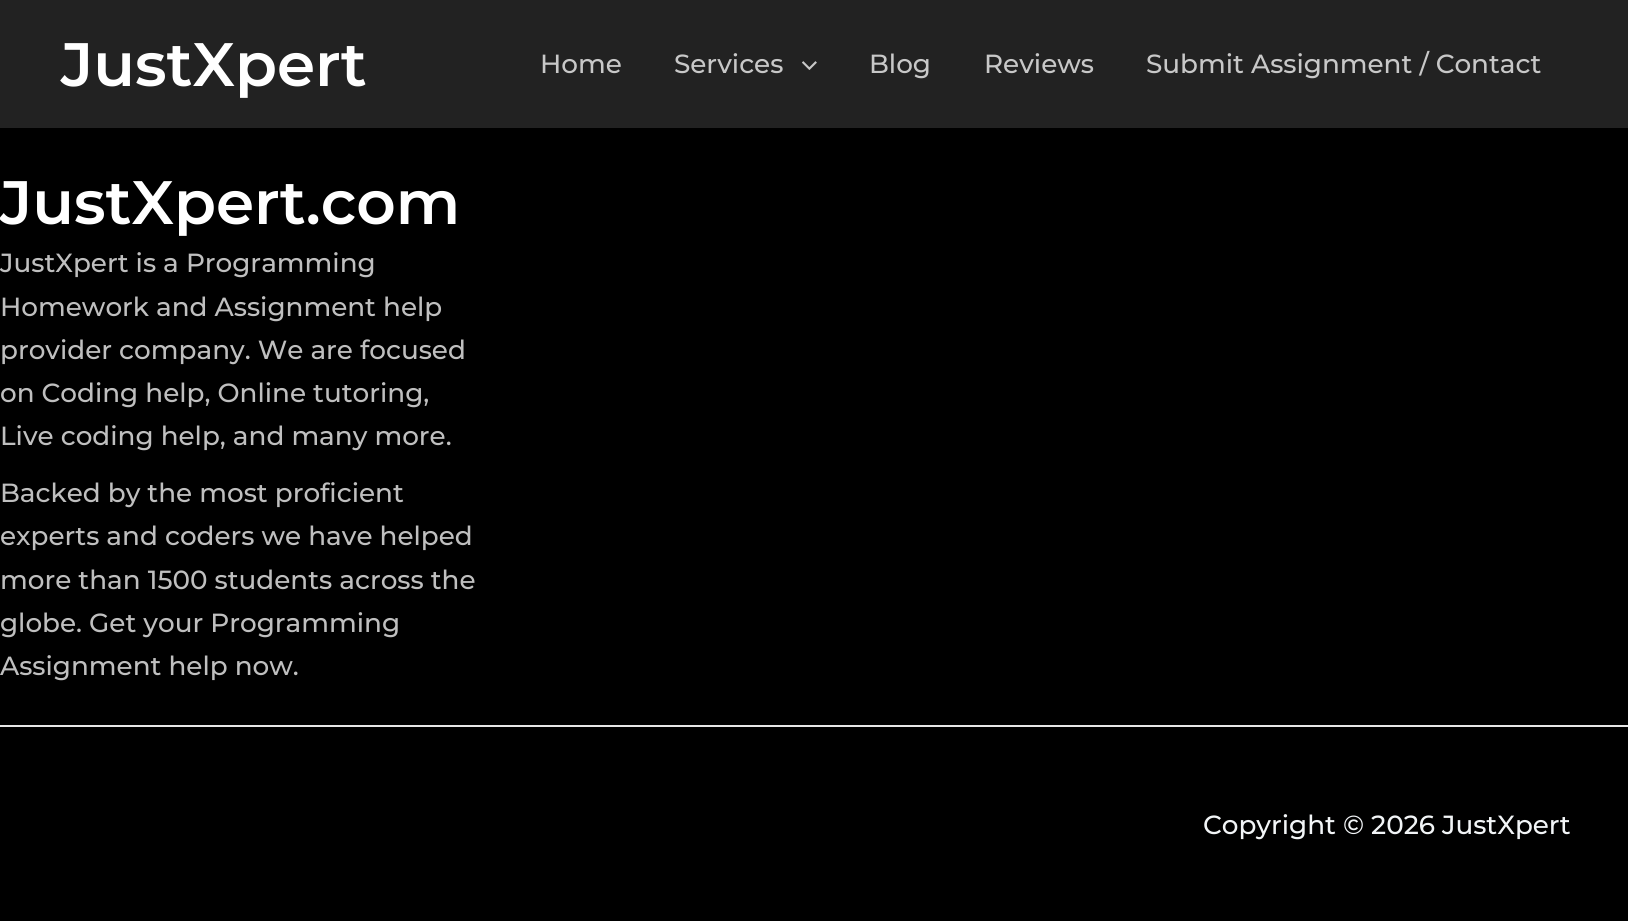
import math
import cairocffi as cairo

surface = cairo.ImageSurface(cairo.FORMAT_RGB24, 1628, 921)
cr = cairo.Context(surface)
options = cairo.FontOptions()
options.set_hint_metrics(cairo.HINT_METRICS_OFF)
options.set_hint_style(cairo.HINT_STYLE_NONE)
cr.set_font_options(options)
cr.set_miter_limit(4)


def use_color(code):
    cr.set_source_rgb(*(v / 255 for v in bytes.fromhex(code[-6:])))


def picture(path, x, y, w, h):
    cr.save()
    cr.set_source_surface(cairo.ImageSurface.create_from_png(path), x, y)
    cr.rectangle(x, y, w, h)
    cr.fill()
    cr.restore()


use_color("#222222")
cr.paint()
cr.select_font_face("Montserrat SemiBold")
cr.set_font_size(61.25)
use_color("#ffffff")
cr.move_to(61, 86)
cr.show_text("JustXpert")
cr.select_font_face("Montserrat Medium")
cr.set_font_size(26.25)
use_color("#c8c8c8")
cr.move_to(540, 73)
cr.show_text("Home")
cr.move_to(674, 73)
cr.show_text("Services")
picture("img1.png", 802, 61, 15, 9)
cr.move_to(869, 73)
cr.show_text("Blog")
cr.move_to(984, 73)
cr.show_text("Reviews")
cr.move_to(1146, 73)
cr.show_text("Submit Assignment / Contact")
use_color("#000000")
cr.rectangle(0, 128, 1628, 793)
cr.fill()
cr.select_font_face("Montserrat SemiBold")
cr.set_font_size(61.25)
use_color("#ffffff")
cr.move_to(0, 224)
cr.show_text("JustXpert.com")
cr.select_font_face("Montserrat Medium")
cr.set_font_size(26.25)
use_color("#bfbfbf")
cr.move_to(0, 272)
cr.show_text("JustXpert is a Programming")
cr.move_to(0, 316)
cr.show_text("Homework and Assignment help")
cr.move_to(0, 359)
cr.show_text("provider company. We are focused")
cr.move_to(0, 402)
cr.show_text("on Coding help, Online tutoring,")
cr.move_to(0, 445)
cr.show_text("Live coding help, and many more.")
cr.move_to(0, 502)
cr.show_text("Backed by the most proficient")
cr.move_to(0, 545)
cr.show_text("experts and coders we have helped")
cr.move_to(0, 589)
cr.show_text("more than 1500 students across the")
cr.move_to(0, 632)
cr.show_text("globe. Get your Programming")
cr.move_to(0, 675)
cr.show_text("Assignment help now.")
use_color("#e6e6e6")
cr.rectangle(0, 725, 1628, 2)
cr.fill()
use_color("#f2f5f7")
cr.move_to(1203, 834)
cr.show_text("Copyright © 2026 JustXpert")
surface.write_to_png("result.png")
